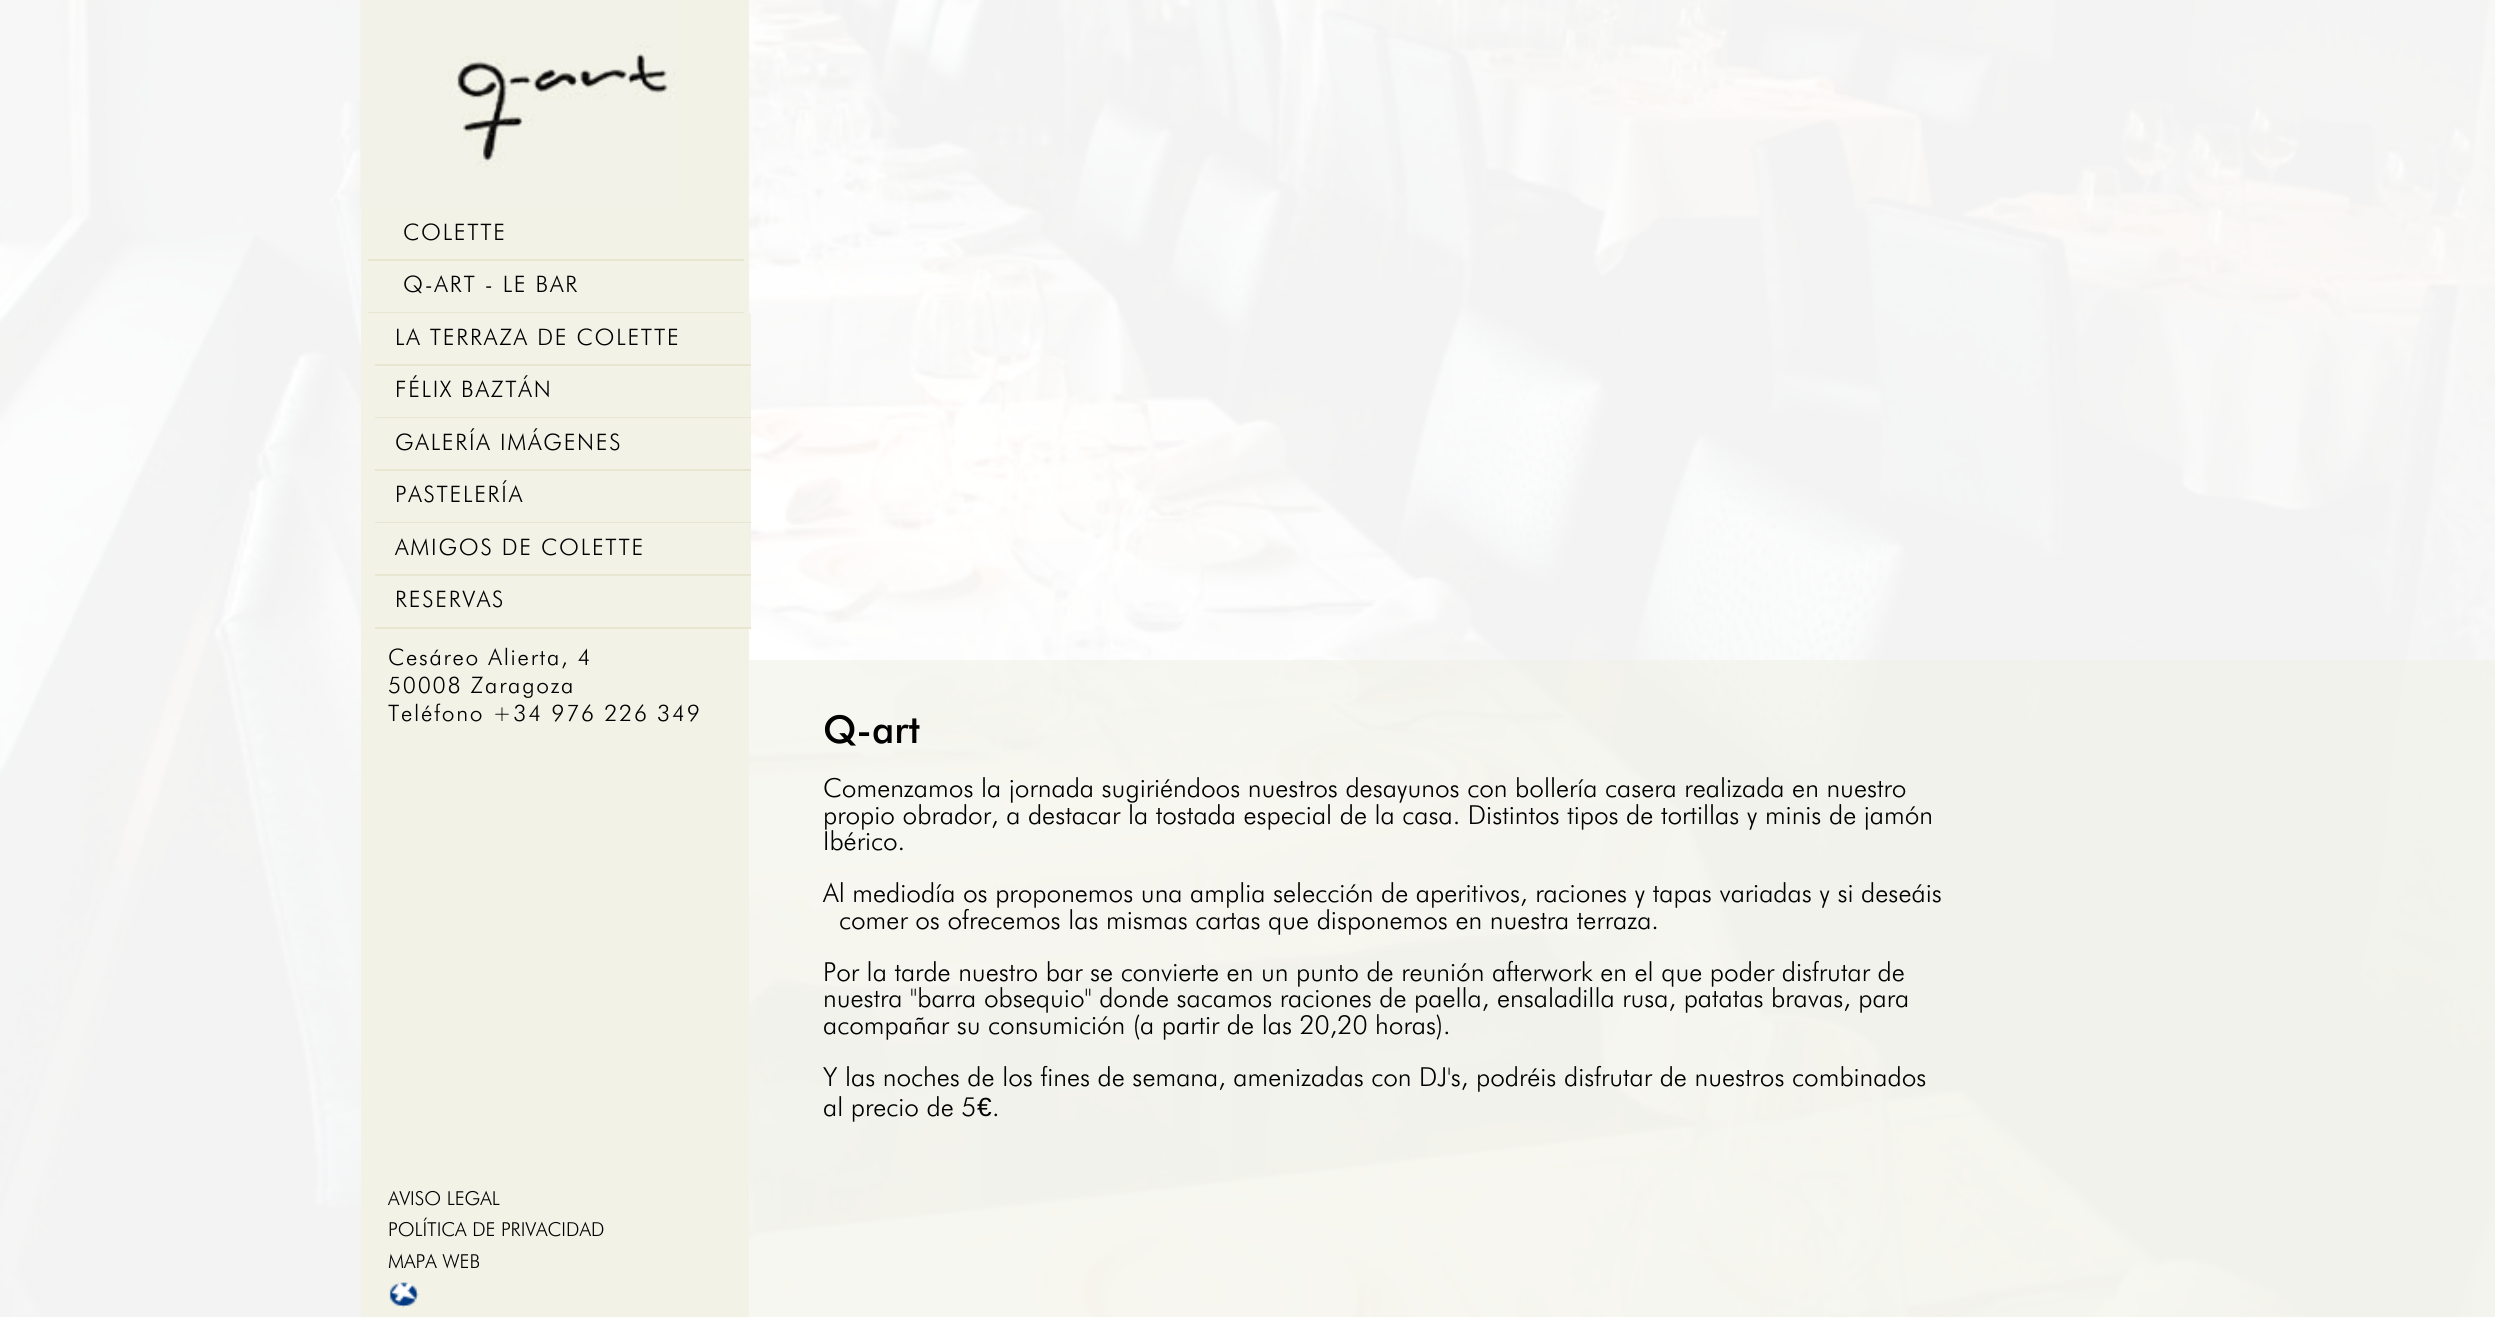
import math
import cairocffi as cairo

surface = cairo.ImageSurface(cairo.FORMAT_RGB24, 2495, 1317)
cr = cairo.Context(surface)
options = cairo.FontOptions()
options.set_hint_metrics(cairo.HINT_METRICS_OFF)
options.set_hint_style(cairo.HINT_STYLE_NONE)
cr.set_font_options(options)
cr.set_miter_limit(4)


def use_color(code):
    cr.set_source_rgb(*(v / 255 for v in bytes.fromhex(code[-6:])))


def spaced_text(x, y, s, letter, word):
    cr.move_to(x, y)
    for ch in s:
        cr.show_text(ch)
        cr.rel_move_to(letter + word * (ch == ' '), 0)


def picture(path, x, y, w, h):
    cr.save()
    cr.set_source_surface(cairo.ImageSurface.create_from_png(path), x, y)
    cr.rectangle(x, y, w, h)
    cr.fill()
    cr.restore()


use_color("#ffffff")
cr.paint()
picture("img1.png", 0, 0, 2495, 1317)
use_color("#f2f2e7")
cr.rectangle(361, 0, 388, 1317)
cr.fill()
picture("img2.png", 360, 0, 318, 208)
use_color("#e6e6d1")
cr.rectangle(368, 259, 376, 2)
cr.fill()
cr.select_font_face("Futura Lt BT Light")
cr.set_font_size(22.75)
use_color("#000000")
spaced_text(403, 240, "COLETTE", 1.75, 0)
use_color("#e6e6d1")
cr.rectangle(368, 312, 376, 1)
cr.fill()
use_color("#000000")
spaced_text(403, 292, "Q-ART - LE BAR", 1.75, 0)
use_color("#f2f2e7")
cr.rectangle(749, 313, 2, 315)
cr.fill()
use_color("#e6e6d1")
cr.rectangle(375, 364, 376, 2)
cr.fill()
use_color("#000000")
spaced_text(395, 345, "LA TERRAZA DE COLETTE", 1.75, 0)
use_color("#e6e6d1")
cr.rectangle(375, 417, 376, 1)
cr.fill()
use_color("#000000")
spaced_text(395, 397, "FÉLIX BAZTÁN", 1.75, 0)
use_color("#e6e6d1")
cr.rectangle(375, 469, 376, 2)
cr.fill()
use_color("#000000")
spaced_text(395, 450, "GALERÍA IMÁGENES", 1.75, 0)
use_color("#e6e6d1")
cr.rectangle(375, 522, 376, 1)
cr.fill()
use_color("#000000")
spaced_text(395, 502, "PASTELERÍA", 1.75, 0)
use_color("#e6e6d1")
cr.rectangle(375, 574, 376, 2)
cr.fill()
use_color("#000000")
spaced_text(395, 555, "AMIGOS DE COLETTE", 1.75, 0)
use_color("#e6e6d1")
cr.rectangle(375, 627, 376, 2)
cr.fill()
use_color("#000000")
spaced_text(395, 607, "RESERVAS", 1.75, 0)
spaced_text(388, 665, "Cesáreo Alierta, 4", 1.75, 0)
spaced_text(388, 693, "50008 Zaragoza", 1.75, 0)
spaced_text(388, 721, "Teléfono +34 976 226 349", 1.75, 0)
cr.set_font_size(19.25)
cr.move_to(388, 1205)
cr.show_text("AVISO LEGAL")
cr.move_to(388, 1236)
cr.show_text("POLÍTICA DE PRIVACIDAD")
cr.move_to(388, 1268)
cr.show_text("MAPA WEB")
picture("img3.png", 389, 1282, 30, 26)
cr.set_source_rgba(0.949, 0.949, 0.91, 0.6)
cr.rectangle(749, 660, 1746, 657)
cr.fill()
cr.select_font_face("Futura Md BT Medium")
cr.set_font_size(38.5)
use_color("#000000")
cr.move_to(823, 743)
cr.show_text("Q-art")
cr.select_font_face("Futura Lt BT Light")
cr.set_font_size(26.25)
cr.move_to(823, 797)
cr.show_text("Comenzamos la jornada sugiriéndoos nuestros desayunos con bollería casera realizada en nuestro")
cr.move_to(823, 824)
cr.show_text("propio obrador, a destacar la tostada especial de la casa. Distintos tipos de tortillas y minis de jamón")
cr.move_to(823, 850)
cr.show_text("Ibérico.")
cr.move_to(823, 902)
cr.show_text("Al mediodía os proponemos una amplia selección de aperitivos, raciones y tapas variadas y si deseáis")
cr.move_to(839, 929)
cr.show_text("comer os ofrecemos las mismas cartas que disponemos en nuestra terraza.")
cr.move_to(823, 981)
cr.show_text("Por la tarde nuestro bar se convierte en un punto de reunión afterwork en el que poder disfrutar de")
cr.move_to(823, 1007)
cr.show_text("nuestra \"barra obsequio\" donde sacamos raciones de paella, ensaladilla rusa, patatas bravas, para")
cr.move_to(823, 1034)
cr.show_text("acompañar su consumición (a partir de las 20,20 horas).")
cr.move_to(823, 1086)
cr.show_text("Y las noches de los fines de semana, amenizadas con DJ's, podréis disfrutar de nuestros combinados")
cr.move_to(823, 1116)
cr.show_text("al precio de 5")
cr.select_font_face("Liberation Sans")
cr.move_to(977, 1116)
cr.show_text("€")
cr.select_font_face("Futura Lt BT Light")
cr.move_to(992, 1116)
cr.show_text(".")
surface.write_to_png("result.png")
